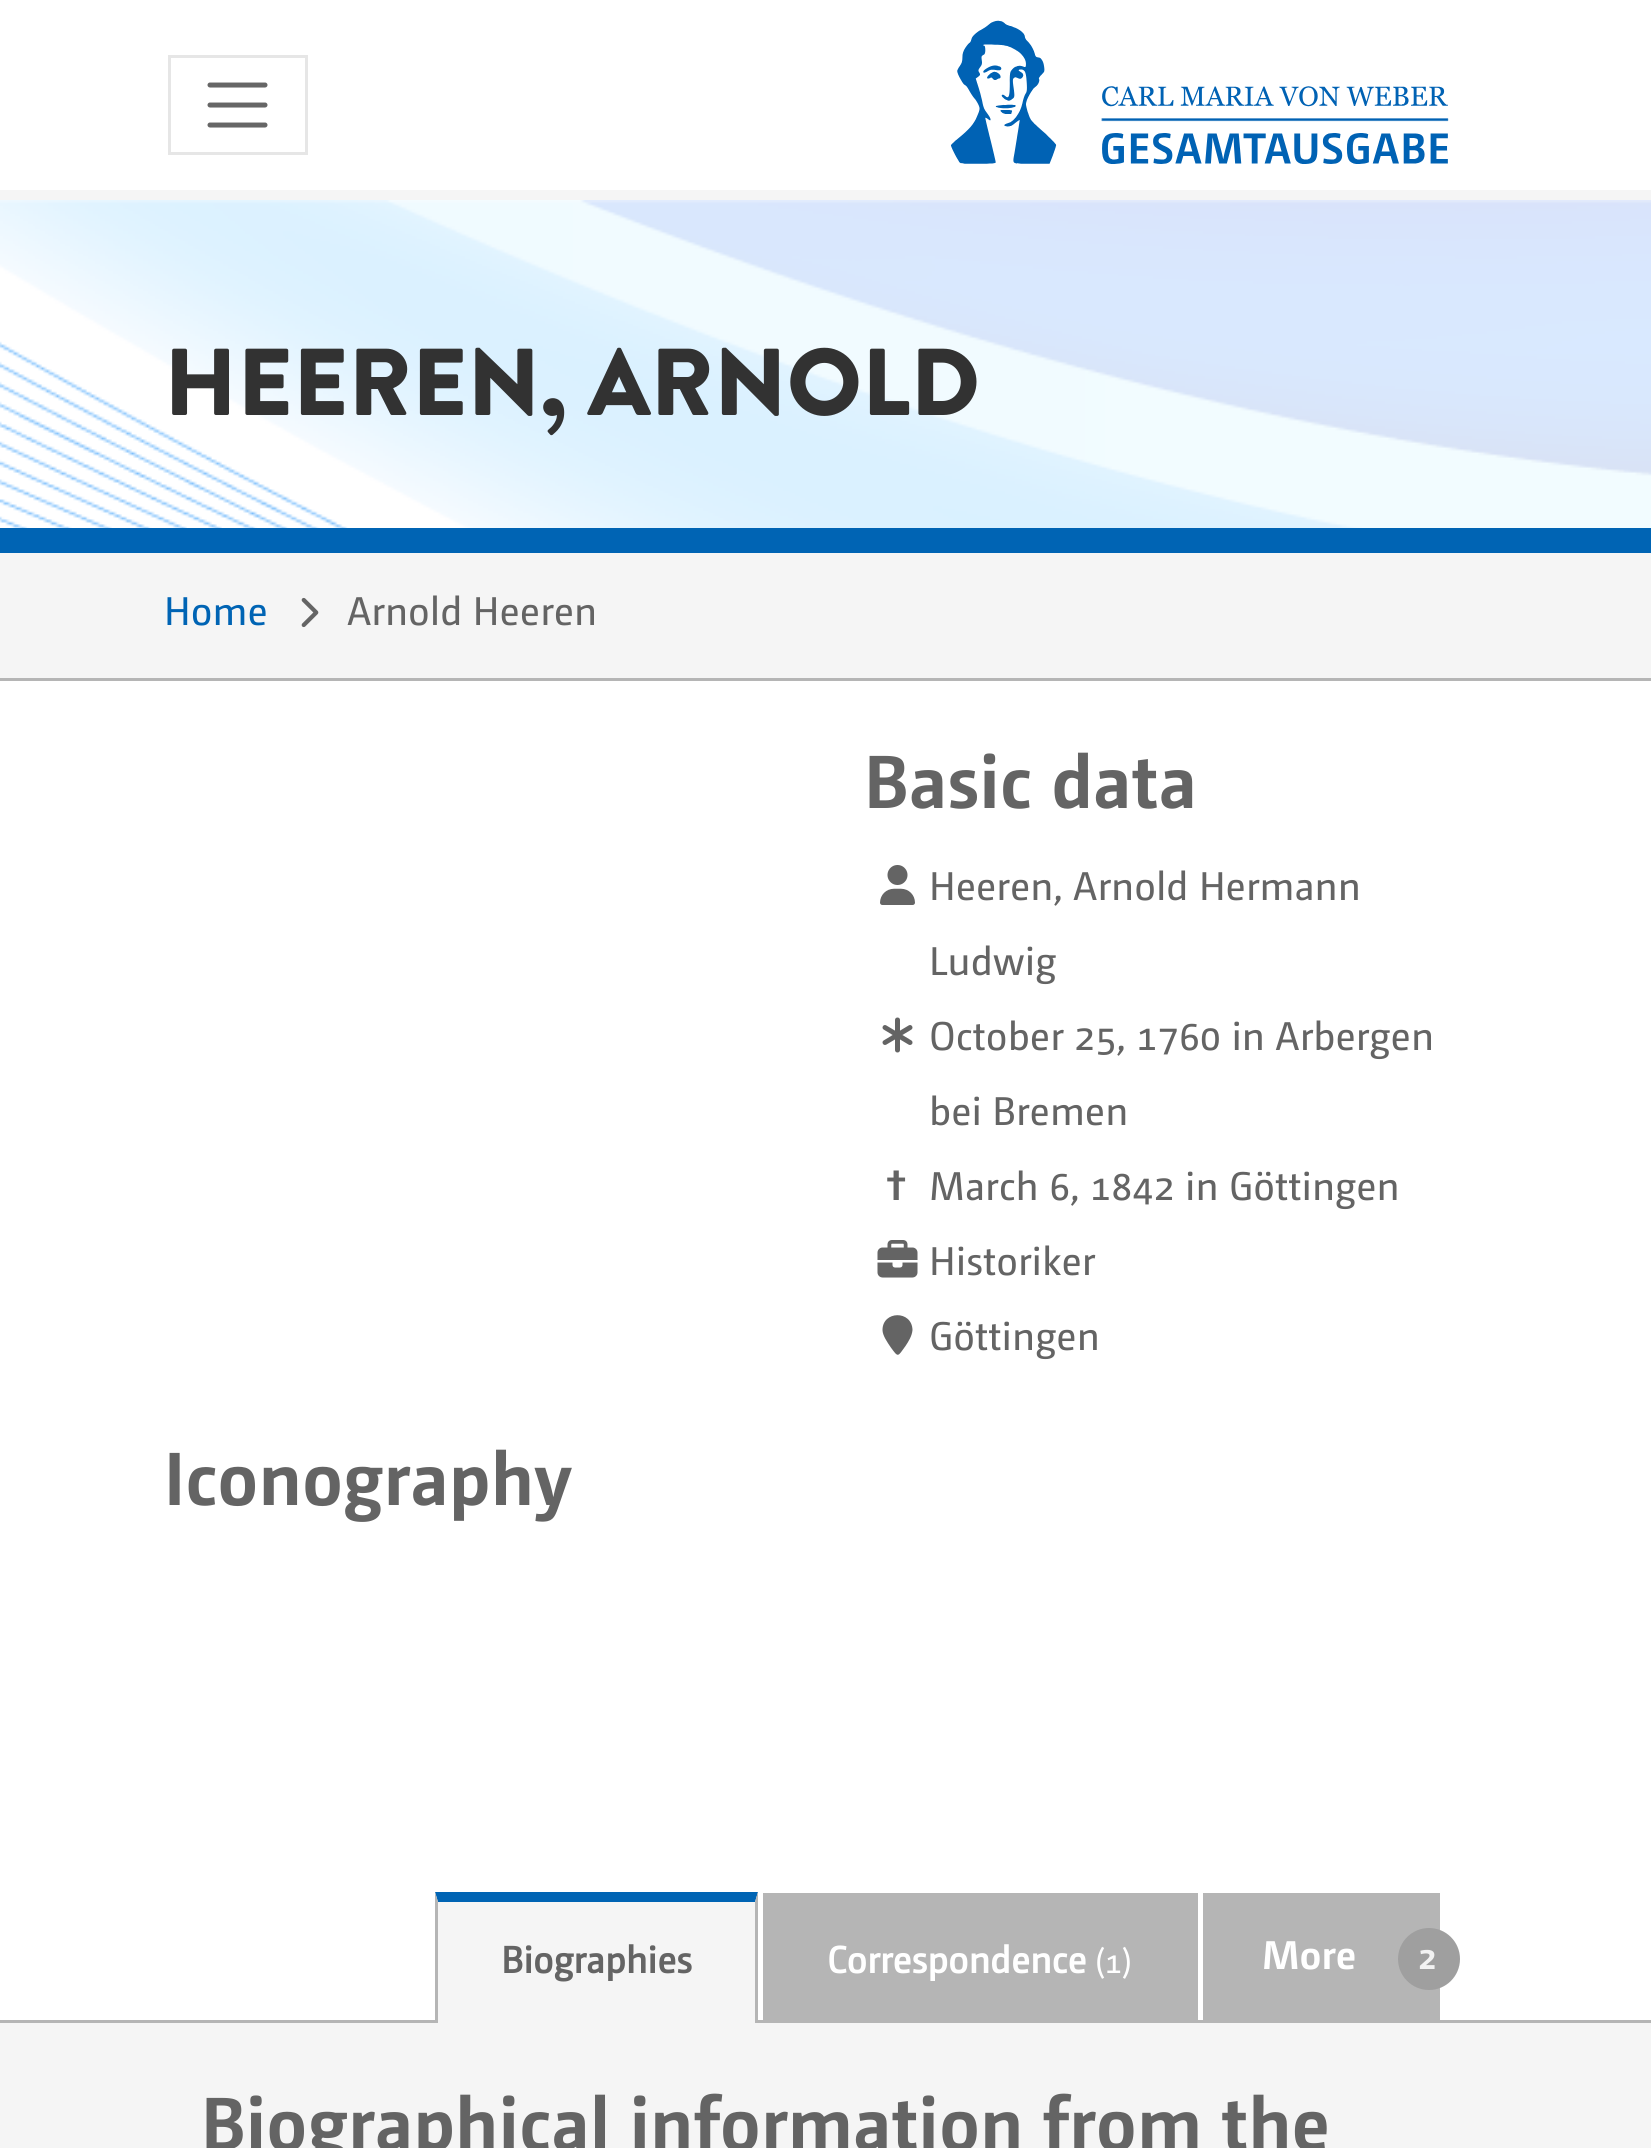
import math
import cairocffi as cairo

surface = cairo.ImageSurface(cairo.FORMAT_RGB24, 1651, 2148)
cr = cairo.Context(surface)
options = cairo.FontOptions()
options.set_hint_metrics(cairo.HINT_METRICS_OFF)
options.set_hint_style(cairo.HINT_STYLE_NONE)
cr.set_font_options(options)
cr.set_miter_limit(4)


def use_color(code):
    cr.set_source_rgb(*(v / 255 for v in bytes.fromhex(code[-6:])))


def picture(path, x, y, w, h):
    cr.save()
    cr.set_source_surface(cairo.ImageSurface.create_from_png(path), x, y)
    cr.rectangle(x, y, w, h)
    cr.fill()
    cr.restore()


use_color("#ffffff")
cr.paint()
cr.rectangle(169.5, 56.5, 137, 97)
use_color("#e6e6e6")
cr.set_line_width(3)
cr.stroke()
cr.new_path()
cr.move_to(210, 85)
cr.line_to(265, 85)
cr.move_to(210, 105)
cr.line_to(265, 105)
cr.move_to(210, 125)
cr.line_to(265, 125)
use_color("#666666")
cr.set_line_width(5)
cr.set_line_cap(cairo.LINE_CAP_ROUND)
cr.stroke()
picture("img1.png", 951, 20, 498, 144)
use_color("#f5f5f5")
cr.rectangle(0, 190, 1651, 10)
cr.fill()
picture("img2.png", 0, 200, 1651, 328)
use_color("#0064b4")
cr.rectangle(0, 528, 1651, 25)
cr.fill()
cr.select_font_face("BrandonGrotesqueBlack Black")
cr.set_font_size(94.75)
use_color("#323232")
cr.move_to(164, 415)
cr.show_text("HEEREN, ARNOLD")
use_color("#f5f5f5")
cr.rectangle(0, 553, 1651, 125)
cr.fill()
use_color("#b5b5b5")
cr.rectangle(0, 678, 1651, 3)
cr.fill()
cr.select_font_face("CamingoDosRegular")
cr.set_font_size(40)
use_color("#0064b4")
cr.move_to(164, 625)
cr.show_text("Home")
picture("img3.png", 301, 597, 18, 31)
use_color("#646464")
cr.move_to(347, 625)
cr.show_text("Arnold Heeren")
cr.select_font_face("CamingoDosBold", cairo.FONT_SLANT_NORMAL, cairo.FONT_WEIGHT_BOLD)
cr.set_font_size(75)
cr.move_to(864, 808)
cr.show_text("Basic data")
picture("img4.png", 880, 865, 35, 40)
cr.select_font_face("CamingoDosRegular")
cr.set_font_size(40)
cr.move_to(929, 900)
cr.show_text("Heeren, Arnold Hermann")
cr.move_to(929, 975)
cr.show_text("Ludwig")
picture("img5.png", 882, 1017, 31, 36)
cr.move_to(929, 1050)
cr.show_text("October 25, 1760 in Arbergen")
cr.move_to(929, 1125)
cr.show_text("bei Bremen")
cr.select_font_face("CamingoDosBold", cairo.FONT_SLANT_NORMAL, cairo.FONT_WEIGHT_BOLD)
cr.move_to(886, 1200)
cr.show_text("†")
cr.select_font_face("CamingoDosRegular")
cr.move_to(929, 1200)
cr.show_text("March 6, 1842 in Göttingen")
picture("img6.png", 877, 1240, 41, 38)
cr.move_to(929, 1275)
cr.show_text("Historiker")
cr.new_path()
cr.move_to(912.5, 1330)
cr.curve_to(912, 1336, 908.5, 1341.5, 905.5, 1346)
cr.curve_to(897.5, 1357, 898.5, 1358, 890.5, 1347)
cr.curve_to(887.5, 1342.5, 882.5, 1335.5, 882.5, 1330)
cr.curve_to(882.5, 1310.5, 912, 1310, 912.5, 1330)
cr.close_path()
cr.fill()
cr.move_to(929, 1350)
cr.show_text("Göttingen")
cr.select_font_face("CamingoDosBold", cairo.FONT_SLANT_NORMAL, cairo.FONT_WEIGHT_BOLD)
cr.set_font_size(75)
cr.move_to(164, 1505)
cr.show_text("Iconography")
use_color("#b5b5b5")
cr.rectangle(0, 2020, 1651, 3)
cr.fill()
use_color("#f5f5f5")
cr.rectangle(435, 1893, 323, 130)
cr.fill()
use_color("#0064b4")
cr.new_path()
cr.move_to(435, 1892)
cr.line_to(758, 1892)
cr.line_to(755, 1902)
cr.line_to(438, 1902)
cr.close_path()
cr.fill()
use_color("#f5f5f5")
cr.rectangle(0, 2023, 1651, 125)
cr.fill()
use_color("#b5b5b5")
cr.new_path()
cr.move_to(758, 1892)
cr.line_to(758, 2025)
cr.line_to(755, 2025)
cr.line_to(755, 1902)
cr.close_path()
cr.fill()
cr.new_path()
cr.move_to(435, 2025)
cr.line_to(435, 1892)
cr.line_to(438, 1902)
cr.line_to(438, 2025)
cr.close_path()
cr.fill()
cr.select_font_face("CamingoDosRegular", cairo.FONT_SLANT_NORMAL, cairo.FONT_WEIGHT_BOLD)
cr.set_font_size(37.5)
use_color("#646464")
cr.move_to(501, 1973)
cr.show_text("Biographies")
use_color("#b5b5b5")
cr.rectangle(766, 1893, 429, 127)
cr.fill()
cr.rectangle(1195, 1893, 3, 132)
cr.fill()
cr.rectangle(763, 1893, 3, 132)
cr.fill()
use_color("#ffffff")
cr.move_to(827, 1973)
cr.show_text("Correspondence")
cr.select_font_face("CamingoDosRegular")
cr.set_font_size(33)
cr.move_to(1095, 1973)
cr.show_text("(1)")
use_color("#b5b5b5")
cr.rectangle(1203, 1893, 237, 127)
cr.fill()
cr.select_font_face("CamingoDosBold", cairo.FONT_SLANT_NORMAL, cairo.FONT_WEIGHT_BOLD)
cr.set_font_size(40)
use_color("#ffffff")
cr.move_to(1262, 1969)
cr.show_text("More")
use_color("#9f9f9f")
cr.new_path()
cr.arc(1429, 1959, 31, 0, 2 * math.pi)
cr.fill()
cr.set_font_size(35)
use_color("#f2f2f2")
cr.move_to(1418, 1969)
cr.show_text("2")
use_color("#f5f5f5")
cr.rectangle(435, 2023, 763, 2)
cr.fill()
cr.set_font_size(75)
use_color("#646464")
cr.move_to(201, 2150)
cr.show_text("Biographical information from the")
surface.write_to_png("result.png")
